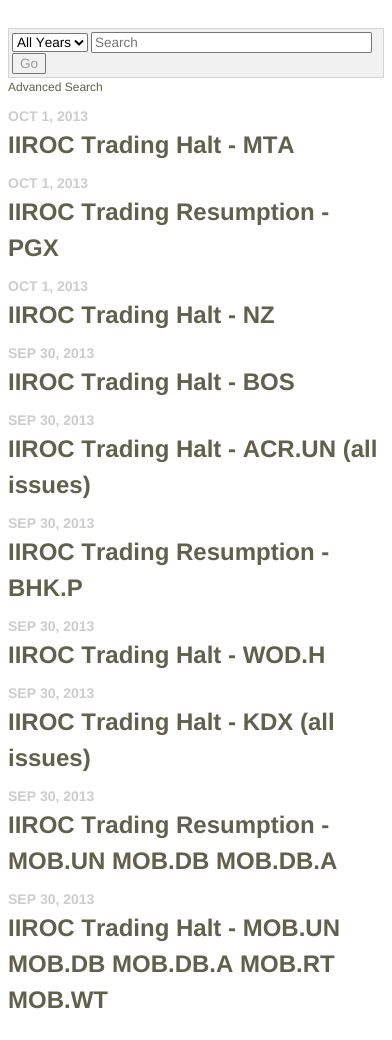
import math
import cairocffi as cairo

surface = cairo.ImageSurface(cairo.FORMAT_RGB24, 392, 1040)
cr = cairo.Context(surface)
options = cairo.FontOptions()
options.set_hint_metrics(cairo.HINT_METRICS_OFF)
options.set_hint_style(cairo.HINT_STYLE_NONE)
cr.set_font_options(options)
cr.set_miter_limit(4)


def use_color(code):
    cr.set_source_rgb(*(v / 255 for v in bytes.fromhex(code[-6:])))


def round_rect(x, y, w, h, r):
    cr.new_sub_path()
    for i, (u, v) in enumerate([(x + w - r, y + h - r), (x + r, y + h - r), (x + r, y + r), (x + w - r, y + r)]):
        cr.arc(u, v, r, i * math.pi / 2, (i + 1) * math.pi / 2)
    cr.close_path()


use_color("#ffffff")
cr.paint()
use_color("#f1f1f1")
cr.rectangle(8.5, 28.5, 375, 49)
cr.fill_preserve()
use_color("#d3d3d3")
cr.set_line_width(1)
cr.stroke()
use_color("#ffffff")
round_rect(12.5, 33.5, 75, 18, 1.5)
cr.fill_preserve()
use_color("#767676")
cr.stroke()
cr.new_path()
cr.move_to(75, 40.5)
cr.line_to(79, 44.5)
cr.line_to(83, 40.5)
use_color("#000000")
cr.set_line_width(2)
cr.stroke()
cr.select_font_face("Liberation Sans")
cr.set_font_size(13.5)
cr.move_to(17, 47)
cr.show_text("All Years")
use_color("#ffffff")
round_rect(91.5, 32.5, 280, 20, 1.5)
cr.fill_preserve()
use_color("#767676")
cr.set_line_width(1)
cr.stroke()
use_color("#757575")
cr.move_to(95, 47)
cr.show_text("Search")
round_rect(12.5, 53.5, 33, 20, 1.5)
use_color("#767676")
cr.stroke()
use_color("#999999")
cr.move_to(20, 68)
cr.show_text("Go")
cr.set_font_size(12)
use_color("#60604d")
cr.move_to(8, 91)
cr.show_text("Advanced Search")
cr.select_font_face("Liberation Sans", cairo.FONT_SLANT_NORMAL, cairo.FONT_WEIGHT_BOLD)
cr.set_font_size(14)
use_color("#cccccc")
cr.move_to(8, 121)
cr.show_text("OCT 1, 2013")
cr.set_font_size(24)
use_color("#60604d")
cr.move_to(8, 153)
cr.show_text("IIROC Trading Halt - MTA")
cr.set_font_size(14)
use_color("#cccccc")
cr.move_to(8, 188)
cr.show_text("OCT 1, 2013")
cr.set_font_size(24)
use_color("#60604d")
cr.move_to(8, 220)
cr.show_text("IIROC Trading Resumption -")
cr.move_to(8, 256)
cr.show_text("PGX")
cr.set_font_size(14)
use_color("#cccccc")
cr.move_to(8, 291)
cr.show_text("OCT 1, 2013")
cr.set_font_size(24)
use_color("#60604d")
cr.move_to(8, 323)
cr.show_text("IIROC Trading Halt - NZ")
cr.set_font_size(14)
use_color("#cccccc")
cr.move_to(8, 358)
cr.show_text("SEP 30, 2013")
cr.set_font_size(24)
use_color("#60604d")
cr.move_to(8, 390)
cr.show_text("IIROC Trading Halt - BOS")
cr.set_font_size(14)
use_color("#cccccc")
cr.move_to(8, 425)
cr.show_text("SEP 30, 2013")
cr.set_font_size(24)
use_color("#60604d")
cr.move_to(8, 457)
cr.show_text("IIROC Trading Halt - ACR.UN (all")
cr.move_to(8, 493)
cr.show_text("issues)")
cr.set_font_size(14)
use_color("#cccccc")
cr.move_to(8, 528)
cr.show_text("SEP 30, 2013")
cr.set_font_size(24)
use_color("#60604d")
cr.move_to(8, 560)
cr.show_text("IIROC Trading Resumption -")
cr.move_to(8, 596)
cr.show_text("BHK.P")
cr.set_font_size(14)
use_color("#cccccc")
cr.move_to(8, 631)
cr.show_text("SEP 30, 2013")
cr.set_font_size(24)
use_color("#60604d")
cr.move_to(8, 663)
cr.show_text("IIROC Trading Halt - WOD.H")
cr.set_font_size(14)
use_color("#cccccc")
cr.move_to(8, 698)
cr.show_text("SEP 30, 2013")
cr.set_font_size(24)
use_color("#60604d")
cr.move_to(8, 730)
cr.show_text("IIROC Trading Halt - KDX (all")
cr.move_to(8, 766)
cr.show_text("issues)")
cr.set_font_size(14)
use_color("#cccccc")
cr.move_to(8, 801)
cr.show_text("SEP 30, 2013")
cr.set_font_size(24)
use_color("#60604d")
cr.move_to(8, 833)
cr.show_text("IIROC Trading Resumption -")
cr.move_to(8, 869)
cr.show_text("MOB.UN MOB.DB MOB.DB.A")
cr.set_font_size(14)
use_color("#cccccc")
cr.move_to(8, 904)
cr.show_text("SEP 30, 2013")
cr.set_font_size(24)
use_color("#60604d")
cr.move_to(8, 936)
cr.show_text("IIROC Trading Halt - MOB.UN")
cr.move_to(8, 972)
cr.show_text("MOB.DB MOB.DB.A MOB.RT")
cr.move_to(8, 1008)
cr.show_text("MOB.WT")
surface.write_to_png("result.png")
